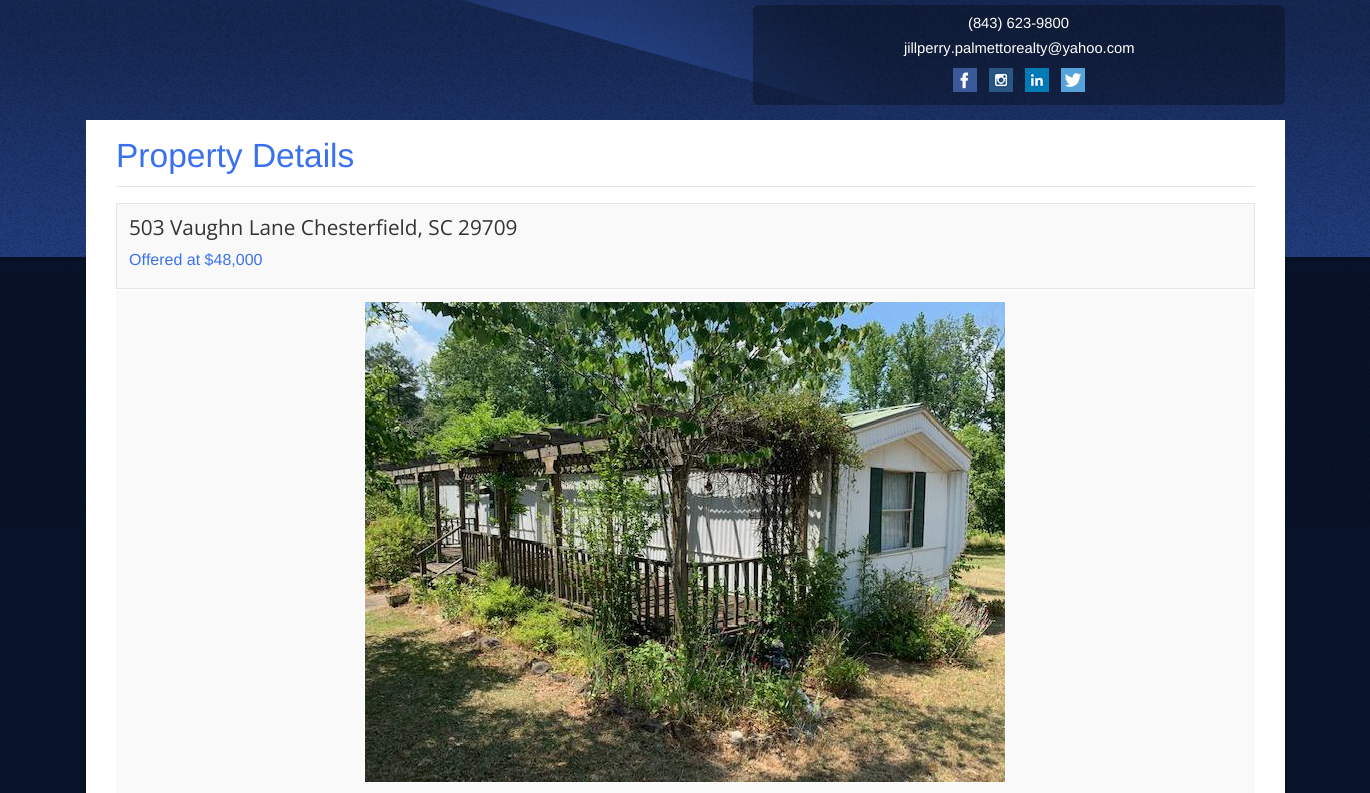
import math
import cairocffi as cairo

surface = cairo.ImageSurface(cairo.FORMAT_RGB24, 1370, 793)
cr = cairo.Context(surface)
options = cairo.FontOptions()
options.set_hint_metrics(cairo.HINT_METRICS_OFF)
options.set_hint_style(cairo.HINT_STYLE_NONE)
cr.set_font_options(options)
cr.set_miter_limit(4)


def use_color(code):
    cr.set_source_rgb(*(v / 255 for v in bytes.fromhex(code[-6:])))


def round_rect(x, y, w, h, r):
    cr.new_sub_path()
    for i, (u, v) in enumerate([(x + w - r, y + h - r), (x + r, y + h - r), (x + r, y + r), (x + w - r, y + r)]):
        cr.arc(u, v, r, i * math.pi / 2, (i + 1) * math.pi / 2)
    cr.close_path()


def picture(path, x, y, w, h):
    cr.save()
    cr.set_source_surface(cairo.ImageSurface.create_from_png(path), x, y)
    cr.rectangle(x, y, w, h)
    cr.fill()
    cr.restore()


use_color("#081229")
cr.paint()
picture("img1.png", 0, 0, 1370, 527)
picture("img2.png", 463, 0, 413, 115)
cr.set_source_rgba(0, 0, 0, 0.3)
round_rect(753, 5, 532, 100, 6)
cr.fill()
cr.select_font_face("Liberation Sans")
cr.set_font_size(14.75)
use_color("#ffffff")
cr.move_to(968, 28)
cr.show_text("(843) 623-9800")
cr.move_to(904, 53)
cr.show_text("jillperry.palmettorealty@yahoo.com")
picture("img3.png", 953, 68, 24, 24)
picture("img4.png", 989, 68, 24, 24)
picture("img5.png", 1025, 68, 24, 24)
picture("img6.png", 1061, 68, 24, 24)
cr.rectangle(86, 120, 1199, 673)
cr.fill()
cr.set_font_size(33.5)
use_color("#3b71ef")
cr.move_to(116, 167)
cr.show_text("Property Details")
use_color("#e5e5e5")
cr.rectangle(116, 186, 1139, 1)
cr.fill()
use_color("#f9f9f9")
cr.rectangle(116.5, 203.5, 1138, 85)
cr.fill_preserve()
use_color("#e5e5e5")
cr.set_line_width(1)
cr.stroke()
cr.select_font_face("Open Sans")
cr.set_font_size(20.75)
use_color("#343434")
cr.move_to(129, 235)
cr.show_text("503 Vaughn Lane Chesterfield, SC 29709")
cr.select_font_face("Liberation Sans")
cr.set_font_size(16)
use_color("#3b71ef")
cr.move_to(129, 265)
cr.show_text("Offered at $48,000")
use_color("#f9f9f9")
cr.rectangle(116, 291, 1139, 502)
cr.fill()
cr.rectangle(364.5, 301.5, 641, 481)
use_color("#ffffff")
cr.stroke()
picture("img7.png", 365, 302, 640, 480)
surface.write_to_png("result.png")
